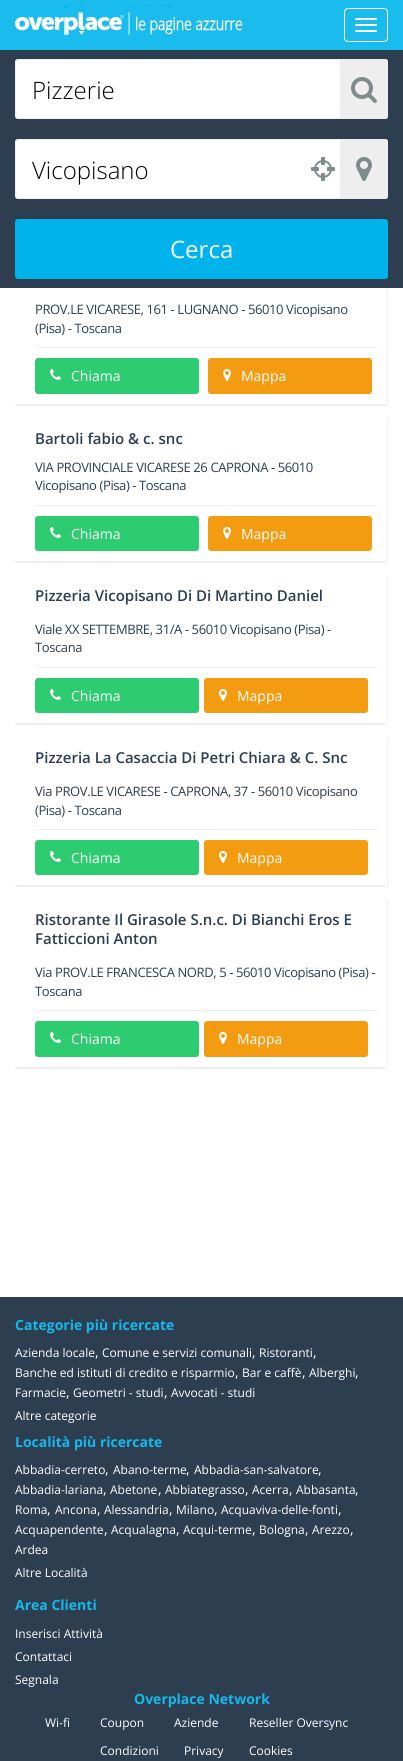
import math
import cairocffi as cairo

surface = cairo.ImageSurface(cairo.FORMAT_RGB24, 403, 1761)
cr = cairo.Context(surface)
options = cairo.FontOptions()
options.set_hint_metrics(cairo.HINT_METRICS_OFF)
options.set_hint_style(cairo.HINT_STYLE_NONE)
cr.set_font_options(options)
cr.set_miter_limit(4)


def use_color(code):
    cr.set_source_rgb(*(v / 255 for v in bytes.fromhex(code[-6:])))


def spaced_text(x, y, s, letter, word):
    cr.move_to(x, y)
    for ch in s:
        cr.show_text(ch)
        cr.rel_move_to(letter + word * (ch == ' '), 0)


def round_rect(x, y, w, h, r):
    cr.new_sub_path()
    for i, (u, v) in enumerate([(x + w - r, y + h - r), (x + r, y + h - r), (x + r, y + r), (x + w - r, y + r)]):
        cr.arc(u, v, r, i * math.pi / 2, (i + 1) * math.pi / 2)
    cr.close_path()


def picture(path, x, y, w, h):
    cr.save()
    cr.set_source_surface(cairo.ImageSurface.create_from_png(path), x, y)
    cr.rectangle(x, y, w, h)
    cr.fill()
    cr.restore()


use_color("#ffffff")
cr.paint()
use_color("#1abced")
cr.rectangle(0, 0, 403, 50)
cr.fill()
picture("img1.png", 15, 5, 228, 30)
round_rect(344.5, 8.5, 43, 33, 3.5)
use_color("#ffffff")
cr.set_line_width(1)
cr.stroke()
round_rect(355, 18, 22, 2, 1)
cr.fill()
round_rect(355, 24, 22, 2, 1)
cr.fill()
round_rect(355, 30, 22, 2, 1)
cr.fill()
use_color("#eeeeee")
cr.new_path()
cr.move_to(15, 401)
cr.curve_to(15, 403, 15, 406, 18, 406)
cr.line_to(385, 406)
cr.curve_to(388, 406, 388, 403, 388, 401)
cr.curve_to(388, 403, 387, 404, 385, 404)
cr.line_to(18, 404)
cr.curve_to(16, 404, 15, 403, 15, 401)
cr.close_path()
cr.fill()
use_color("#ffffff")
round_rect(15, 261, 373, 143, 3)
cr.fill()
use_color("#2c3e50")
cr.rectangle(0, 50, 403, 238)
cr.fill()
use_color("#ffffff")
cr.new_path()
cr.move_to(18, 59.5)
cr.line_to(340.5, 59.5)
cr.line_to(340.5, 118.5)
cr.line_to(18, 118.5)
cr.curve_to(16.5, 118.5, 15.5, 117.5, 15.5, 116)
cr.line_to(15.5, 62)
cr.curve_to(15.5, 60.5, 16.5, 59.5, 18, 59.5)
cr.close_path()
cr.fill_preserve()
use_color("#eeeeee")
cr.stroke()
cr.select_font_face("Open Sans Light")
cr.set_font_size(24)
use_color("#000000")
cr.move_to(32, 99)
cr.show_text("Pizzerie")
use_color("#eeeeee")
cr.new_path()
cr.move_to(341, 59)
cr.line_to(385, 59)
cr.curve_to(386.5, 59, 388, 60.5, 388, 62)
cr.line_to(388, 116)
cr.curve_to(388, 117.5, 386.5, 119, 385, 119)
cr.line_to(341, 119)
cr.close_path()
cr.fill()
cr.set_fill_rule(cairo.FILL_RULE_EVEN_ODD)
cr.new_path()
cr.move_to(341, 59)
cr.line_to(385, 59)
cr.curve_to(387, 59, 388, 60, 388, 62)
cr.line_to(388, 116)
cr.curve_to(388, 118, 387, 119, 385, 119)
cr.line_to(341, 119)
cr.close_path()
cr.move_to(341, 60)
cr.line_to(385, 60)
cr.curve_to(386, 60, 387, 61, 387, 62)
cr.line_to(387, 116)
cr.curve_to(387, 117, 386, 118, 385, 118)
cr.line_to(341, 118)
cr.close_path()
cr.fill()
picture("img2.png", 351, 77, 26, 26)
use_color("#ffffff")
cr.new_path()
cr.move_to(18, 139.5)
cr.line_to(340.5, 139.5)
cr.line_to(340.5, 198.5)
cr.line_to(18, 198.5)
cr.curve_to(16.5, 198.5, 15.5, 197.5, 15.5, 196)
cr.line_to(15.5, 142)
cr.curve_to(15.5, 140.5, 16.5, 139.5, 18, 139.5)
cr.close_path()
cr.fill_preserve()
use_color("#eeeeee")
cr.stroke()
use_color("#000000")
cr.move_to(32, 179)
cr.show_text("Vicopisano")
picture("img3.png", 311, 157, 24, 24)
use_color("#eeeeee")
cr.new_path()
cr.move_to(341, 139)
cr.line_to(385, 139)
cr.curve_to(386.5, 139, 388, 140.5, 388, 142)
cr.line_to(388, 196)
cr.curve_to(388, 197.5, 386.5, 199, 385, 199)
cr.line_to(341, 199)
cr.close_path()
cr.fill()
cr.new_path()
cr.move_to(341, 139)
cr.line_to(385, 139)
cr.curve_to(387, 139, 388, 140, 388, 142)
cr.line_to(388, 196)
cr.curve_to(388, 198, 387, 199, 385, 199)
cr.line_to(341, 199)
cr.close_path()
cr.move_to(341, 140)
cr.line_to(385, 140)
cr.curve_to(386, 140, 387, 141, 387, 142)
cr.line_to(387, 196)
cr.curve_to(387, 197, 386, 198, 385, 198)
cr.line_to(341, 198)
cr.close_path()
cr.fill()
picture("img4.png", 356, 157, 16, 24)
use_color("#00b4eb")
round_rect(15, 219, 373, 60, 3)
cr.fill()
cr.select_font_face("Open Sans")
use_color("#ffffff")
cr.move_to(170, 258)
cr.show_text("Cerca")
use_color("#eeeeee")
cr.rectangle(387, 288, 1, 116)
cr.fill()
cr.set_font_size(13)
use_color("#2c3e50")
spaced_text(35, 314, "PROV.LE VICARESE, 161 - LUGNANO - 56010 Vicopisano", -0.4, 0)
spaced_text(35, 333, "(Pisa) - Toscana", -0.4, 0)
use_color("#eeeeee")
cr.rectangle(35, 347, 342, 1)
cr.fill()
use_color("#2ecc71")
round_rect(35, 358, 164, 36, 3)
cr.fill()
picture("img5.png", 50, 369, 11, 11)
cr.set_font_size(14)
use_color("#ffffff")
cr.move_to(71, 381)
cr.show_text("Chiama")
use_color("#f39c12")
round_rect(208, 358, 164, 36, 3)
cr.fill()
picture("img6.png", 223, 369, 8, 12)
use_color("#ffffff")
cr.move_to(241, 381)
cr.show_text("Mappa")
use_color("#eeeeee")
cr.set_fill_rule(cairo.FILL_RULE_WINDING)
cr.new_path()
cr.move_to(15, 558)
cr.curve_to(15, 560, 15, 563, 18, 563)
cr.line_to(385, 563)
cr.curve_to(388, 563, 388, 560, 388, 558)
cr.curve_to(388, 560, 387, 561, 385, 561)
cr.line_to(18, 561)
cr.curve_to(16, 561, 15, 560, 15, 558)
cr.close_path()
cr.fill()
use_color("#ffffff")
round_rect(15, 419, 373, 142, 3)
cr.fill()
use_color("#eeeeee")
cr.rectangle(387, 419, 1, 142)
cr.fill()
cr.select_font_face("Open Sans SemiBold")
cr.set_font_size(15)
use_color("#2c3e50")
cr.move_to(35, 444)
cr.show_text("Bartoli fabio & c. snc")
cr.select_font_face("Open Sans")
cr.set_font_size(13)
spaced_text(35, 472, "VIA PROVINCIALE VICARESE 26 CAPRONA - 56010", -0.4, 0)
spaced_text(35, 490, "Vicopisano (Pisa) - Toscana", -0.4, 0)
use_color("#eeeeee")
cr.rectangle(35, 505, 342, 1)
cr.fill()
use_color("#2ecc71")
round_rect(35, 516, 164, 35, 3)
cr.fill()
picture("img5.png", 50, 527, 11, 11)
cr.set_font_size(14)
use_color("#ffffff")
cr.move_to(71, 539)
cr.show_text("Chiama")
use_color("#f39c12")
round_rect(208, 516, 164, 35, 3)
cr.fill()
picture("img6.png", 223, 527, 8, 12)
use_color("#ffffff")
cr.move_to(241, 539)
cr.show_text("Mappa")
use_color("#eeeeee")
cr.new_path()
cr.move_to(15, 720)
cr.curve_to(15, 722, 15, 725, 18, 725)
cr.line_to(385, 725)
cr.curve_to(388, 725, 388, 722, 388, 720)
cr.curve_to(388, 722, 387, 723, 385, 723)
cr.line_to(18, 723)
cr.curve_to(16, 723, 15, 722, 15, 720)
cr.close_path()
cr.fill()
use_color("#ffffff")
round_rect(15, 576, 373, 147, 3)
cr.fill()
use_color("#eeeeee")
cr.rectangle(387, 576, 1, 147)
cr.fill()
cr.select_font_face("Open Sans SemiBold")
cr.set_font_size(15)
use_color("#2c3e50")
cr.move_to(35, 601)
cr.show_text("Pizzeria Vicopisano Di Di Martino Daniel")
cr.select_font_face("Open Sans")
cr.set_font_size(13)
spaced_text(35, 634, "Viale XX SETTEMBRE, 31/A - 56010 Vicopisano (Pisa) -", -0.4, 0)
spaced_text(35, 652, "Toscana", -0.4, 0)
use_color("#eeeeee")
cr.rectangle(35, 667, 342, 1)
cr.fill()
use_color("#2ecc71")
round_rect(35, 678, 164, 35, 3)
cr.fill()
picture("img5.png", 50, 689, 11, 11)
cr.set_font_size(14)
use_color("#ffffff")
cr.move_to(71, 701)
cr.show_text("Chiama")
use_color("#f39c12")
round_rect(204, 678, 164, 35, 3)
cr.fill()
picture("img6.png", 219, 689, 8, 12)
use_color("#ffffff")
cr.move_to(237, 701)
cr.show_text("Mappa")
use_color("#eeeeee")
cr.new_path()
cr.move_to(15, 882)
cr.curve_to(15, 884, 15, 887, 18, 887)
cr.line_to(385, 887)
cr.curve_to(388, 887, 388, 884, 388, 882)
cr.curve_to(388, 884, 387, 885, 385, 885)
cr.line_to(18, 885)
cr.curve_to(16, 885, 15, 884, 15, 882)
cr.close_path()
cr.fill()
use_color("#ffffff")
round_rect(15, 738, 373, 147, 3)
cr.fill()
use_color("#eeeeee")
cr.rectangle(387, 738, 1, 147)
cr.fill()
cr.select_font_face("Open Sans SemiBold")
cr.set_font_size(15)
use_color("#2c3e50")
cr.move_to(35, 763)
cr.show_text("Pizzeria La Casaccia Di Petri Chiara & C. Snc")
cr.select_font_face("Open Sans")
cr.set_font_size(13)
spaced_text(35, 796, "Via PROV.LE VICARESE - CAPRONA, 37 - 56010 Vicopisano", -0.4, 0)
spaced_text(35, 815, "(Pisa) - Toscana", -0.4, 0)
use_color("#eeeeee")
cr.rectangle(35, 829, 342, 1)
cr.fill()
use_color("#2ecc71")
round_rect(35, 840, 164, 35, 3)
cr.fill()
picture("img5.png", 50, 851, 11, 11)
cr.set_font_size(14)
use_color("#ffffff")
cr.move_to(71, 863)
cr.show_text("Chiama")
use_color("#f39c12")
round_rect(204, 840, 164, 35, 3)
cr.fill()
picture("img6.png", 219, 851, 8, 12)
use_color("#ffffff")
cr.move_to(237, 863)
cr.show_text("Mappa")
use_color("#eeeeee")
cr.new_path()
cr.move_to(15, 1064)
cr.curve_to(15, 1066, 15, 1069, 18, 1069)
cr.line_to(385, 1069)
cr.curve_to(388, 1069, 388, 1066, 388, 1064)
cr.curve_to(388, 1066, 387, 1067, 385, 1067)
cr.line_to(18, 1067)
cr.curve_to(16, 1067, 15, 1066, 15, 1064)
cr.close_path()
cr.fill()
use_color("#ffffff")
round_rect(15, 900, 373, 167, 3)
cr.fill()
use_color("#eeeeee")
cr.rectangle(387, 900, 1, 167)
cr.fill()
cr.select_font_face("Open Sans SemiBold")
cr.set_font_size(15)
use_color("#2c3e50")
cr.move_to(35, 925)
cr.show_text("Ristorante Il Girasole S.n.c. Di Bianchi Eros E")
cr.move_to(35, 944)
cr.show_text("Fatticcioni Anton")
cr.select_font_face("Open Sans")
cr.set_font_size(13)
spaced_text(35, 977, "Via PROV.LE FRANCESCA NORD, 5 - 56010 Vicopisano (Pisa) -", -0.4, 0)
spaced_text(35, 996, "Toscana", -0.4, 0)
use_color("#eeeeee")
cr.rectangle(35, 1010, 342, 1)
cr.fill()
use_color("#2ecc71")
round_rect(35, 1021, 164, 36, 3)
cr.fill()
picture("img5.png", 50, 1032, 11, 11)
cr.set_font_size(14)
use_color("#ffffff")
cr.move_to(71, 1044)
cr.show_text("Chiama")
use_color("#f39c12")
round_rect(204, 1021, 164, 36, 3)
cr.fill()
picture("img6.png", 219, 1032, 8, 12)
use_color("#ffffff")
cr.move_to(237, 1044)
cr.show_text("Mappa")
use_color("#2d3e50")
cr.rectangle(0, 1297, 403, 464)
cr.fill()
cr.select_font_face("Open Sans", cairo.FONT_SLANT_NORMAL, cairo.FONT_WEIGHT_BOLD)
use_color("#13b9ec")
cr.move_to(15, 1330)
cr.show_text("Categorie più ricercate")
cr.select_font_face("Open Sans")
cr.set_font_size(12)
use_color("#ffffff")
cr.move_to(15, 1357)
cr.show_text("Azienda locale")
cr.set_font_size(14)
cr.move_to(95, 1357)
cr.show_text(",")
cr.set_font_size(12)
cr.move_to(102, 1357)
cr.show_text("Comune e servizi comunali")
cr.set_font_size(14)
cr.move_to(252, 1357)
cr.show_text(",")
cr.set_font_size(12)
cr.move_to(259, 1357)
cr.show_text("Ristoranti")
cr.set_font_size(14)
cr.move_to(313, 1357)
cr.show_text(",")
cr.set_font_size(12)
cr.move_to(15, 1377)
cr.show_text("Banche ed istituti di credito e risparmio")
cr.set_font_size(14)
cr.move_to(235, 1377)
cr.show_text(",")
cr.set_font_size(12)
cr.move_to(242, 1377)
cr.show_text("Bar e caffè")
cr.set_font_size(14)
cr.move_to(302, 1377)
cr.show_text(",")
cr.set_font_size(12)
cr.move_to(309, 1377)
cr.show_text("Alberghi")
cr.set_font_size(14)
cr.move_to(355, 1377)
cr.show_text(",")
cr.set_font_size(12)
cr.move_to(15, 1397)
cr.show_text("Farmacie")
cr.set_font_size(14)
cr.move_to(66, 1397)
cr.show_text(",")
cr.set_font_size(12)
cr.move_to(73, 1397)
cr.show_text("Geometri - studi")
cr.set_font_size(14)
cr.move_to(164, 1397)
cr.show_text(",")
cr.set_font_size(12)
cr.move_to(171, 1397)
cr.show_text("Avvocati - studi")
cr.move_to(15, 1420)
cr.show_text("Altre categorie")
cr.select_font_face("Open Sans", cairo.FONT_SLANT_NORMAL, cairo.FONT_WEIGHT_BOLD)
cr.set_font_size(14)
use_color("#13b9ec")
cr.move_to(15, 1447)
cr.show_text("Località più ricercate")
cr.select_font_face("Open Sans")
cr.set_font_size(12)
use_color("#ffffff")
cr.move_to(15, 1474)
cr.show_text("Abbadia-cerreto")
cr.set_font_size(14)
cr.move_to(105, 1474)
cr.show_text(",")
cr.set_font_size(12)
cr.move_to(113, 1474)
cr.show_text("Abano-terme")
cr.set_font_size(14)
cr.move_to(186, 1474)
cr.show_text(",")
cr.set_font_size(12)
cr.move_to(194, 1474)
cr.show_text("Abbadia-san-salvatore")
cr.set_font_size(14)
cr.move_to(318, 1474)
cr.show_text(",")
cr.set_font_size(12)
cr.move_to(15, 1494)
cr.show_text("Abbadia-lariana")
cr.set_font_size(14)
cr.move_to(103, 1494)
cr.show_text(",")
cr.set_font_size(12)
cr.move_to(110, 1494)
cr.show_text("Abetone")
cr.set_font_size(14)
cr.move_to(158, 1494)
cr.show_text(",")
cr.set_font_size(12)
cr.move_to(165, 1494)
cr.show_text("Abbiategrasso")
cr.set_font_size(14)
cr.move_to(245, 1494)
cr.show_text(",")
cr.set_font_size(12)
cr.move_to(252, 1494)
cr.show_text("Acerra")
cr.set_font_size(14)
cr.move_to(289, 1494)
cr.show_text(",")
cr.set_font_size(12)
cr.move_to(296, 1494)
cr.show_text("Abbasanta")
cr.set_font_size(14)
cr.move_to(355, 1494)
cr.show_text(",")
cr.set_font_size(12)
cr.move_to(15, 1514)
cr.show_text("Roma")
cr.set_font_size(14)
cr.move_to(47, 1514)
cr.show_text(",")
cr.set_font_size(12)
cr.move_to(55, 1514)
cr.show_text("Ancona")
cr.set_font_size(14)
cr.move_to(97, 1514)
cr.show_text(",")
cr.set_font_size(12)
cr.move_to(104, 1514)
cr.show_text("Alessandria")
cr.set_font_size(14)
cr.move_to(169, 1514)
cr.show_text(",")
cr.set_font_size(12)
cr.move_to(176, 1514)
cr.show_text("Milano")
cr.set_font_size(14)
cr.move_to(214, 1514)
cr.show_text(",")
cr.set_font_size(12)
cr.move_to(221, 1514)
cr.show_text("Acquaviva-delle-fonti")
cr.set_font_size(14)
cr.move_to(338, 1514)
cr.show_text(",")
cr.set_font_size(12)
cr.move_to(15, 1534)
cr.show_text("Acquapendente")
cr.set_font_size(14)
cr.move_to(104, 1534)
cr.show_text(",")
cr.set_font_size(12)
cr.move_to(111, 1534)
cr.show_text("Acqualagna")
cr.set_font_size(14)
cr.move_to(176, 1534)
cr.show_text(",")
cr.set_font_size(12)
cr.move_to(183, 1534)
cr.show_text("Acqui-terme")
cr.set_font_size(14)
cr.move_to(252, 1534)
cr.show_text(",")
cr.set_font_size(12)
cr.move_to(259, 1534)
cr.show_text("Bologna")
cr.set_font_size(14)
cr.move_to(305, 1534)
cr.show_text(",")
cr.set_font_size(12)
cr.move_to(312, 1534)
cr.show_text("Arezzo")
cr.set_font_size(14)
cr.move_to(350, 1534)
cr.show_text(",")
cr.set_font_size(12)
cr.move_to(15, 1554)
cr.show_text("Ardea")
cr.move_to(15, 1577)
cr.show_text("Altre Località")
cr.select_font_face("Open Sans", cairo.FONT_SLANT_NORMAL, cairo.FONT_WEIGHT_BOLD)
cr.set_font_size(14)
use_color("#13b9ec")
cr.move_to(15, 1610)
cr.show_text("Area Clienti")
cr.select_font_face("Open Sans")
cr.set_font_size(12)
use_color("#ffffff")
cr.move_to(15, 1638)
cr.show_text("Inserisci Attività")
cr.move_to(15, 1661)
cr.show_text("Contattaci")
cr.move_to(15, 1684)
cr.show_text("Segnala")
cr.select_font_face("Open Sans", cairo.FONT_SLANT_NORMAL, cairo.FONT_WEIGHT_BOLD)
cr.set_font_size(14)
use_color("#13b9ec")
cr.move_to(134, 1704)
cr.show_text("Overplace Network")
cr.select_font_face("Open Sans")
cr.set_font_size(12)
use_color("#ffffff")
cr.move_to(45, 1727)
cr.show_text("Wi-fi")
cr.move_to(100, 1727)
cr.show_text("Coupon")
cr.move_to(174, 1727)
cr.show_text("Aziende")
cr.move_to(249, 1727)
cr.show_text("Reseller Oversync")
cr.move_to(100, 1755)
cr.show_text("Condizioni")
cr.move_to(184, 1755)
cr.show_text("Privacy")
cr.move_to(249, 1755)
cr.show_text("Cookies")
surface.write_to_png("result.png")
